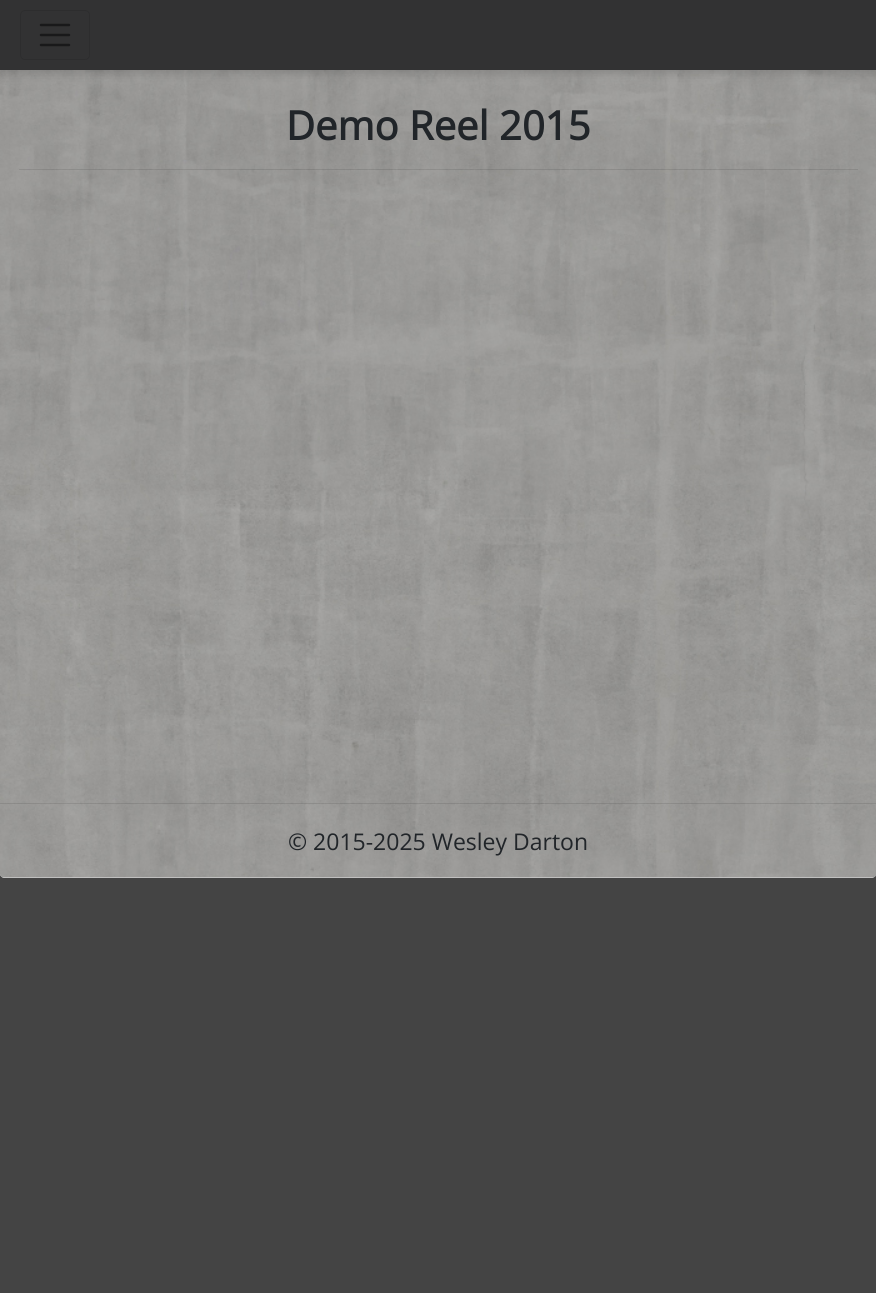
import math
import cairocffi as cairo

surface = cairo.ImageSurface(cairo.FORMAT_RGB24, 876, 1293)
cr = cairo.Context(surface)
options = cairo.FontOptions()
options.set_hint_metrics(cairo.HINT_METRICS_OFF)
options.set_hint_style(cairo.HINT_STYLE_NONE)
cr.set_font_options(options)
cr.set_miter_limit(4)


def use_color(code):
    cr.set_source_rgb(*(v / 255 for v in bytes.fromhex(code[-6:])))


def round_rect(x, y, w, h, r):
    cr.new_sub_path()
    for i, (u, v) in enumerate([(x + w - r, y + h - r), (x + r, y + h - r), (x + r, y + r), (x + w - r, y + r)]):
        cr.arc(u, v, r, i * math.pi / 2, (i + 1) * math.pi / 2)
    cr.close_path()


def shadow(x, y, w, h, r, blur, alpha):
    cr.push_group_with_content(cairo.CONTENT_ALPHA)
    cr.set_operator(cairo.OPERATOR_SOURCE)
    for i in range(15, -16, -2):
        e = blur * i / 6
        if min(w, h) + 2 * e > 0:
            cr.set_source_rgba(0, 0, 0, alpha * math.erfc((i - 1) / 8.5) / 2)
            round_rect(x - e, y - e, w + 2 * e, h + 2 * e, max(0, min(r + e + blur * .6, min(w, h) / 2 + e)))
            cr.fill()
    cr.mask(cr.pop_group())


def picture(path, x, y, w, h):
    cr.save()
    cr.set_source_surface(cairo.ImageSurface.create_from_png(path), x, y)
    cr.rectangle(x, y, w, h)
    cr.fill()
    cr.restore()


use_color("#444444")
cr.paint()
use_color("#cccccc")
cr.new_path()
cr.move_to(0, 0)
cr.line_to(876, 0)
cr.line_to(876, 874)
cr.curve_to(876, 876, 874, 878, 872, 878)
cr.line_to(4, 878)
cr.curve_to(2, 878, 0, 876, 0, 874)
cr.close_path()
cr.fill()
picture("img1.png", 0, 70, 876, 808)
use_color("#000000")
shadow(0, 3, 876, 70, 0, 5, 0.16)
use_color("#323233")
cr.rectangle(0, 0, 876, 70)
cr.fill()
round_rect(20.5, 10.5, 69, 49, 4.5)
use_color("#2d2d2e")
cr.set_line_width(1)
cr.stroke()
cr.new_path()
cr.move_to(41, 25)
cr.line_to(69, 25)
cr.move_to(41, 35)
cr.line_to(69, 35)
cr.move_to(41, 45)
cr.line_to(69, 45)
use_color("#19191a")
cr.set_line_width(2.5)
cr.set_line_cap(cairo.LINE_CAP_ROUND)
cr.stroke()
cr.select_font_face("Open Sans", cairo.FONT_SLANT_NORMAL, cairo.FONT_WEIGHT_BOLD)
cr.set_font_size(40)
use_color("#212529")
cr.move_to(286, 140)
cr.show_text("Demo Reel 2015")
cr.set_source_rgba(0, 0, 0, 0.1)
cr.rectangle(19, 169, 839, 1)
cr.fill()
cr.rectangle(0, 803, 876, 1)
cr.fill()
cr.select_font_face("Open Sans")
cr.set_font_size(23)
use_color("#212529")
cr.move_to(288, 850)
cr.show_text("© 2015-2025 Wesley Darton")
surface.write_to_png("result.png")
